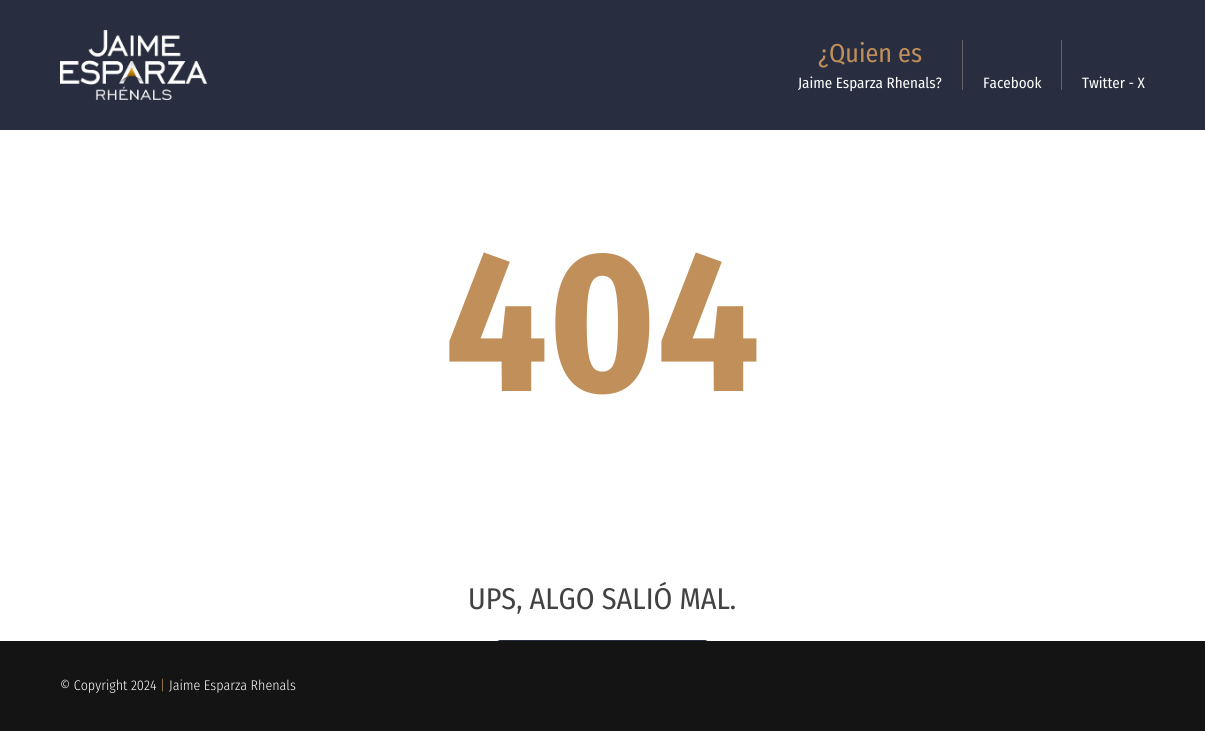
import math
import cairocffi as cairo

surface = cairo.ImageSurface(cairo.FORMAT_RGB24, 1205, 731)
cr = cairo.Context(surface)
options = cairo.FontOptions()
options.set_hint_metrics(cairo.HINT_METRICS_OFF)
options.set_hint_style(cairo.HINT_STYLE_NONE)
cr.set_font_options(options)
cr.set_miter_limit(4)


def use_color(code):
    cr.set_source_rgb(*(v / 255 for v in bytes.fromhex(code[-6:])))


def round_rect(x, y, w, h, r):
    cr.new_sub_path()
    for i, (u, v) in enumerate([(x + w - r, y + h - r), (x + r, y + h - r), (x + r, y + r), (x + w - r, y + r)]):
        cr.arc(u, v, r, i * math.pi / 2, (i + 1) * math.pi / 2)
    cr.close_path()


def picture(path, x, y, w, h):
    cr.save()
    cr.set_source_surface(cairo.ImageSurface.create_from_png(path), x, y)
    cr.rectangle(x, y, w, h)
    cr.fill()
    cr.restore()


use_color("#ffffff")
cr.paint()
use_color("#282e3f")
cr.rectangle(0, 0, 1205, 130)
cr.fill()
picture("img1.png", 60, 30, 147, 70)
cr.select_font_face("Fira Sans Condensed")
cr.set_font_size(26)
use_color("#c18f59")
cr.move_to(818, 62)
cr.show_text("¿Quien es")
cr.set_font_size(15)
use_color("#ffffff")
cr.move_to(798, 88)
cr.show_text("Jaime Esparza Rhenals?")
use_color("#616161")
cr.rectangle(962, 40, 1, 50)
cr.fill()
use_color("#ffffff")
cr.move_to(983, 88)
cr.show_text("Facebook")
use_color("#616161")
cr.rectangle(1061, 40, 1, 50)
cr.fill()
use_color("#ffffff")
cr.move_to(1082, 88)
cr.show_text("Twitter - X")
cr.select_font_face("Fira Sans Condensed", cairo.FONT_SLANT_NORMAL, cairo.FONT_WEIGHT_BOLD)
cr.set_font_size(200)
use_color("#c18f59")
cr.move_to(445, 391)
cr.show_text("404")
cr.select_font_face("Fira Sans Condensed")
cr.set_font_size(30)
use_color("#424242")
cr.move_to(468, 609)
cr.show_text("UPS, ALGO SALIÓ MAL.")
use_color("#282e3f")
round_rect(497, 640, 211, 41, 3)
cr.fill()
use_color("#141414")
cr.rectangle(0, 641, 1205, 90)
cr.fill()
cr.select_font_face("Fira Sans Condensed Light")
cr.set_font_size(14)
use_color("#ffffff")
cr.move_to(60, 690)
cr.show_text("© Copyright 2024")
use_color("#c18f59")
cr.move_to(160, 690)
cr.show_text("|")
use_color("#ffffff")
cr.move_to(169, 690)
cr.show_text("Jaime Esparza Rhenals")
surface.write_to_png("result.png")
